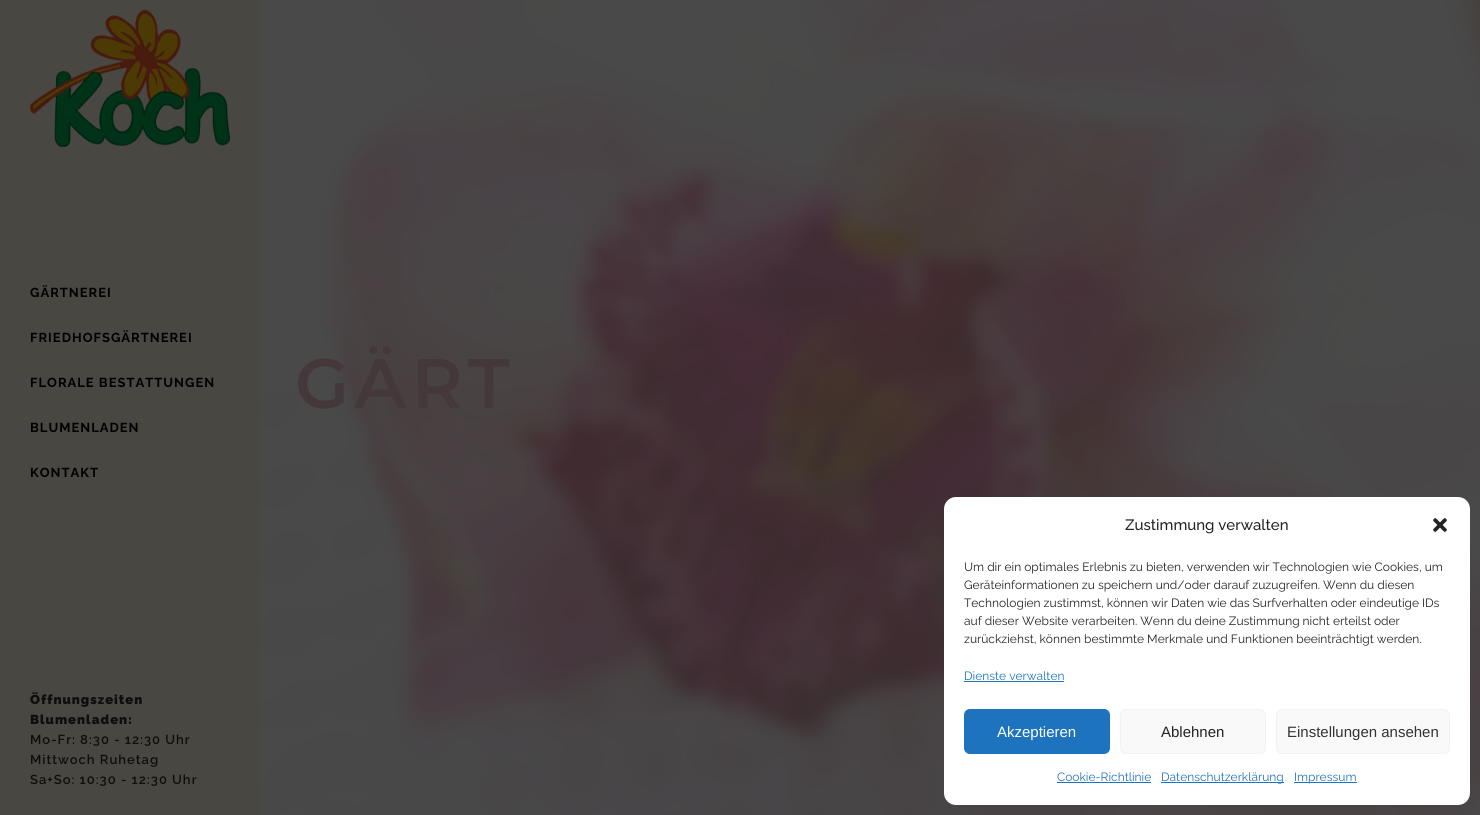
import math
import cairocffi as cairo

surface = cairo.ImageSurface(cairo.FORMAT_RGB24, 1480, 815)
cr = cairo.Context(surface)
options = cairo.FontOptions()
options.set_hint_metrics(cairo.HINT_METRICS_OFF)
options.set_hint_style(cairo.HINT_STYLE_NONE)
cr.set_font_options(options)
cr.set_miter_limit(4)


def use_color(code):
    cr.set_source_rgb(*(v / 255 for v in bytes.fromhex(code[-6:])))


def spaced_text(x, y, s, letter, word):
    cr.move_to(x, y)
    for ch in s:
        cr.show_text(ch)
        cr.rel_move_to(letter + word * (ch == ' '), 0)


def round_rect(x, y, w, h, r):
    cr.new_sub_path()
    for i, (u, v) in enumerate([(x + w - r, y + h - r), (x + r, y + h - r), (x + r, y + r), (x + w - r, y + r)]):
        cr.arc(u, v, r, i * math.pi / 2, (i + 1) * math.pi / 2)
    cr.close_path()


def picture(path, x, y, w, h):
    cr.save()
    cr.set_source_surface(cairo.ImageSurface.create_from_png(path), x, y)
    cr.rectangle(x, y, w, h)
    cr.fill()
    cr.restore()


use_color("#464646")
cr.paint()
use_color("#484742")
cr.rectangle(0, 0, 260, 815)
cr.fill()
picture("img1.png", 30, 10, 200, 137)
cr.select_font_face("Raleway Thin")
cr.set_font_size(13)
use_color("#000000")
spaced_text(30, 297, "GÄRTNEREI", 1, 0)
spaced_text(30, 342, "FRIEDHOFSGÄRTNEREI", 1, 0)
spaced_text(30, 387, "FLORALE BESTATTUNGEN", 1, 0)
spaced_text(30, 432, "BLUMENLADEN", 1, 0)
spaced_text(30, 477, "KONTAKT", 1, 0)
cr.select_font_face("Raleway Black")
use_color("#0e0e0e")
spaced_text(30, 704, "Öffnungszeiten", 1, 0)
spaced_text(30, 724, "Blumenladen:", 1, 0)
cr.select_font_face("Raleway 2 Thin")
spaced_text(30, 744, "Mo-Fr: 8:30 - 12:30 Uhr", 1, 0)
spaced_text(30, 764, "Mittwoch Ruhetag", 1, 0)
spaced_text(30, 784, "Sa+So: 10:30 - 12:30 Uhr", 1, 0)
picture("img2.png", 260, 0, 1220, 815)
cr.select_font_face("Montserrat Thin")
cr.set_font_size(70)
use_color("#45383a")
spaced_text(295, 408, "GÄRT", 5, 0)
use_color("#ffffff")
round_rect(944, 497, 526, 308, 12)
cr.fill()
cr.select_font_face("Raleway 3 Thin")
cr.set_font_size(15)
use_color("#222222")
cr.move_to(1125, 530)
cr.show_text("Zustimmung verwalten")
picture("img3.png", 1433, 518, 14, 14)
cr.select_font_face("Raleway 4 Thin")
cr.set_font_size(12)
cr.move_to(964, 571)
cr.show_text("Um dir ein optimales Erlebnis zu bieten, verwenden wir Technologien wie Cookies, um")
cr.move_to(964, 589)
cr.show_text("Geräteinformationen zu speichern und/oder darauf zuzugreifen. Wenn du diesen")
cr.move_to(964, 607)
cr.show_text("Technologien zustimmst, können wir Daten wie das Surfverhalten oder eindeutige IDs")
cr.move_to(964, 625)
cr.show_text("auf dieser Website verarbeiten. Wenn du deine Zustimmung nicht erteilst oder")
cr.move_to(964, 643)
cr.show_text("zurückziehst, können bestimmte Merkmale und Funktionen beeinträchtigt werden.")
use_color("#1e73be")
cr.move_to(964, 680)
cr.show_text("Dienste verwalten")
cr.rectangle(964, 681, 100, 1)
cr.fill()
round_rect(964.5, 709.5, 145, 44, 5.5)
cr.fill_preserve()
cr.set_line_width(1)
cr.stroke()
cr.select_font_face("Liberation Sans")
cr.set_font_size(15)
use_color("#ffffff")
cr.move_to(997, 737)
cr.show_text("Akzeptieren")
use_color("#f9f9f9")
round_rect(1120.5, 709.5, 145, 44, 5.5)
cr.fill_preserve()
use_color("#f2f2f2")
cr.stroke()
use_color("#222222")
cr.move_to(1161, 737)
cr.show_text("Ablehnen")
use_color("#f9f9f9")
round_rect(1276.5, 709.5, 173, 44, 5.5)
cr.fill_preserve()
use_color("#f2f2f2")
cr.stroke()
use_color("#333333")
cr.move_to(1287, 737)
cr.show_text("Einstellungen ansehen")
cr.select_font_face("Raleway 4 Thin")
cr.set_font_size(12)
use_color("#1e73be")
cr.move_to(1057, 781)
cr.show_text("Cookie-Richtlinie")
cr.rectangle(1057, 782, 94, 1)
cr.fill()
cr.rectangle(1161, 782, 123, 1)
cr.fill()
cr.move_to(1161, 781)
cr.show_text("Datenschutzerklärung")
cr.rectangle(1294, 782, 63, 1)
cr.fill()
cr.move_to(1294, 781)
cr.show_text("Impressum")
surface.write_to_png("result.png")
